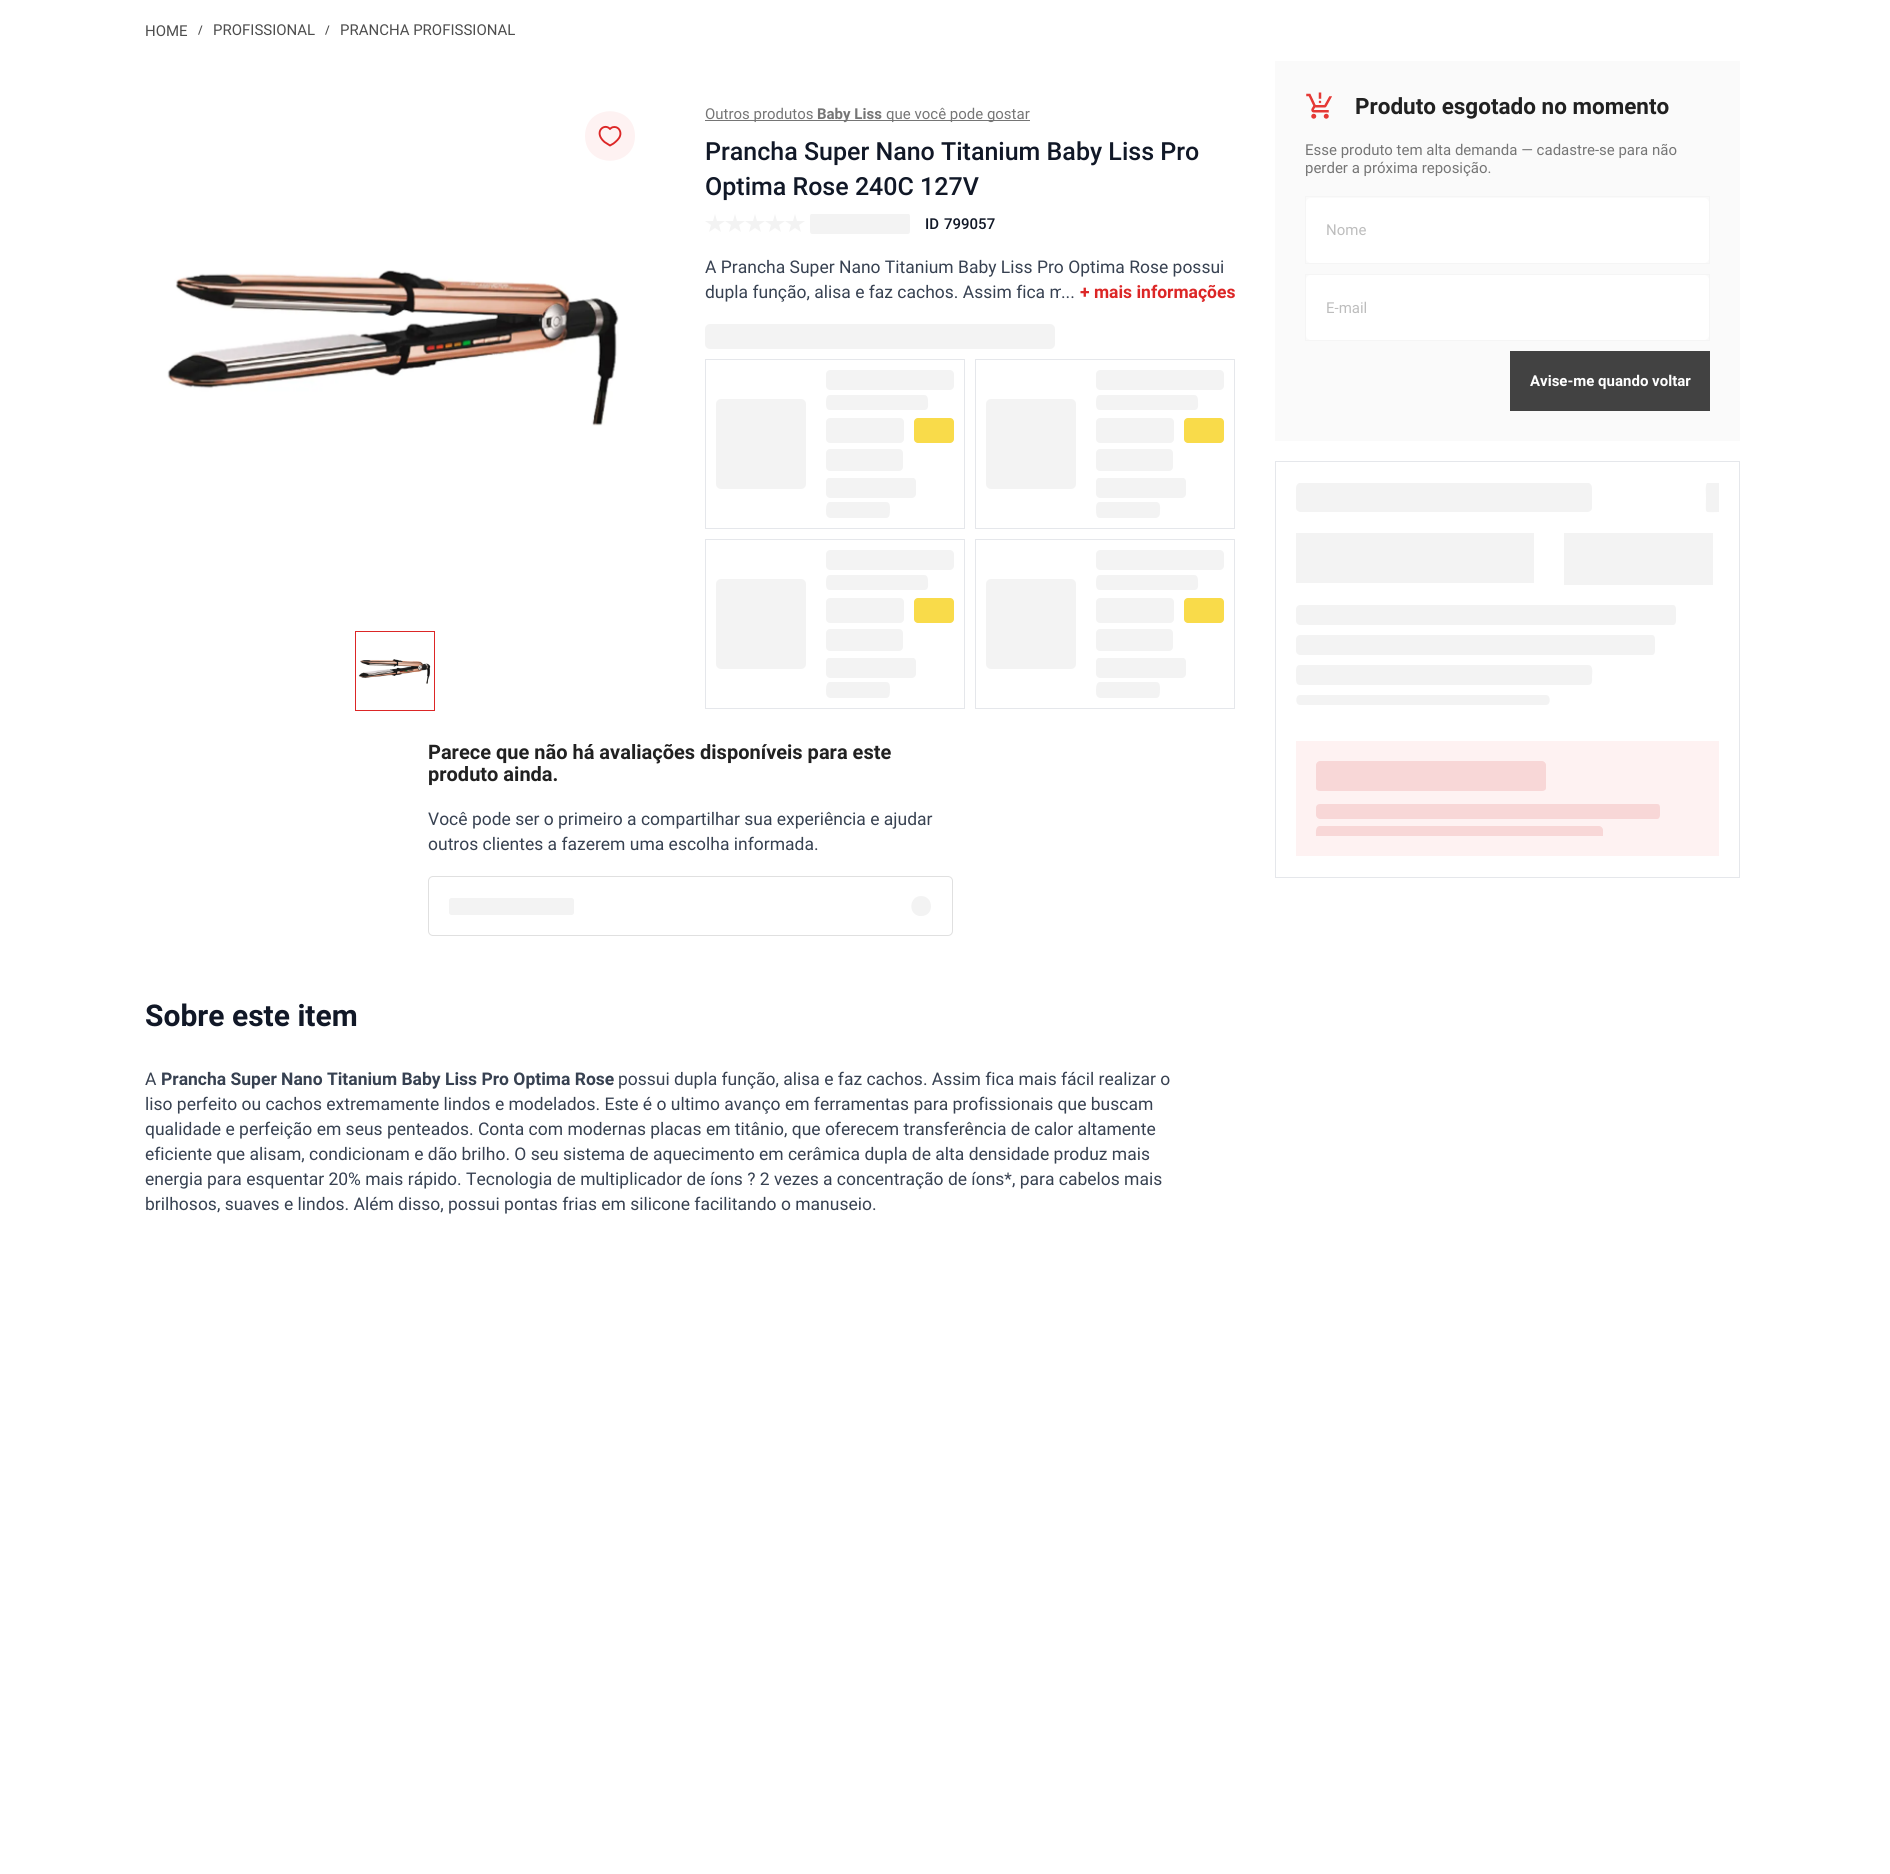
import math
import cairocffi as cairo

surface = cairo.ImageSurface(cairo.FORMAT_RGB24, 1890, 1874)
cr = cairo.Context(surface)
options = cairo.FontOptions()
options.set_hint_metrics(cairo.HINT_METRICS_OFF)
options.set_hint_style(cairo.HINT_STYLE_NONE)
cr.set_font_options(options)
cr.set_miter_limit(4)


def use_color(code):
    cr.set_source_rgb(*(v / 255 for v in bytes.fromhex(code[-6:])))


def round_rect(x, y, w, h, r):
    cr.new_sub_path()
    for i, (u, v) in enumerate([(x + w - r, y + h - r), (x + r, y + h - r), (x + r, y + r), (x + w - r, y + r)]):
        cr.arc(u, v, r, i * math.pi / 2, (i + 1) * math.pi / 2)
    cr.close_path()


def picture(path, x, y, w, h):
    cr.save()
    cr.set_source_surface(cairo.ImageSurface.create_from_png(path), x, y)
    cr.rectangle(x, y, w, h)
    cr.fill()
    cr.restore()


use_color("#ffffff")
cr.paint()
cr.select_font_face("Roboto")
cr.set_font_size(15)
use_color("#4d4d4d")
cr.move_to(145, 36)
cr.show_text("HOME")
cr.select_font_face("Roboto Medium")
cr.set_font_size(12)
cr.move_to(198, 34)
cr.show_text("/")
cr.select_font_face("Roboto")
cr.set_font_size(15)
cr.move_to(213, 35)
cr.show_text("PROFISSIONAL")
cr.select_font_face("Roboto Medium")
cr.set_font_size(12)
cr.move_to(325, 34)
cr.show_text("/")
cr.select_font_face("Roboto")
cr.set_font_size(15)
cr.move_to(340, 35)
cr.show_text("PRANCHA PROFISSIONAL")
use_color("#fef2f2")
cr.new_path()
cr.move_to(585, 136)
cr.curve_to(585, 103, 635, 103, 635, 136)
cr.curve_to(635, 169, 585, 169, 585, 136)
cr.close_path()
cr.fill()
cr.new_path()
cr.move_to(614.5, 127)
cr.curve_to(619, 127, 621.5, 132, 620, 136)
cr.curve_to(619, 139, 616, 141.5, 613.5, 143.5)
cr.line_to(610, 145.5)
cr.line_to(604.5, 142)
cr.curve_to(593, 132, 604.5, 122.5, 610, 129)
cr.curve_to(611, 128, 612, 127, 614.5, 127)
cr.close_path()
use_color("#dc2626")
cr.set_line_width(1.9)
cr.set_line_cap(cairo.LINE_CAP_ROUND)
cr.set_line_join(cairo.LINE_JOIN_ROUND)
cr.stroke()
picture("img1.png", 167, 270, 452, 156)
cr.rectangle(355.5, 631.5, 79, 79)
cr.set_line_width(1)
cr.set_line_cap(cairo.LINE_CAP_BUTT)
cr.set_line_join(cairo.LINE_JOIN_MITER)
cr.stroke()
picture("img2.png", 358, 659, 73, 25)
use_color("#757575")
cr.rectangle(705, 120, 325, 1)
cr.fill()
cr.move_to(705, 119)
cr.show_text("Outros produtos")
cr.select_font_face("Roboto", cairo.FONT_SLANT_NORMAL, cairo.FONT_WEIGHT_BOLD)
cr.move_to(817, 119)
cr.show_text("Baby Liss")
cr.select_font_face("Roboto")
cr.move_to(886, 119)
cr.show_text("que você pode gostar")
cr.select_font_face("Roboto Medium")
cr.set_font_size(25)
use_color("#111827")
cr.move_to(705, 160)
cr.show_text("Prancha Super Nano Titanium Baby Liss Pro")
cr.move_to(705, 195)
cr.show_text("Optima Rose 240C 127V")
gradient = cairo.LinearGradient(295, 214, 500, 214)
gradient.add_color_stop_rgba(0, 0.953, 0.953, 0.953, 1)
gradient.add_color_stop_rgba(0.5, 0.925, 0.922, 0.922, 1)
gradient.add_color_stop_rgba(1, 0.953, 0.953, 0.953, 1)
cr.set_source(gradient)
cr.set_fill_rule(cairo.FILL_RULE_EVEN_ODD)
cr.new_path()
cr.move_to(725, 221)
cr.line_to(717, 221)
cr.line_to(715, 214)
cr.line_to(713, 221)
cr.line_to(705, 221)
cr.line_to(711, 225)
cr.line_to(709, 232)
cr.line_to(715, 228)
cr.line_to(721, 232)
cr.line_to(719, 225)
cr.close_path()
cr.move_to(910, 231)
cr.line_to(910, 216)
cr.curve_to(910, 215, 909, 214, 909, 214)
cr.line_to(811, 214)
cr.curve_to(811, 214, 810, 215, 810, 216)
cr.line_to(810, 231)
cr.curve_to(810, 233, 811, 234, 812, 234)
cr.line_to(908, 234)
cr.curve_to(909, 234, 910, 233, 910, 231)
cr.close_path()
cr.move_to(805, 221)
cr.line_to(799, 225)
cr.line_to(801, 232)
cr.line_to(795, 228)
cr.line_to(789, 232)
cr.line_to(791, 225)
cr.line_to(785, 221)
cr.line_to(793, 221)
cr.line_to(795, 214)
cr.line_to(797, 221)
cr.close_path()
cr.move_to(785, 221)
cr.line_to(779, 225)
cr.line_to(781, 232)
cr.line_to(775, 228)
cr.line_to(769, 232)
cr.line_to(771, 225)
cr.line_to(765, 221)
cr.line_to(773, 221)
cr.line_to(775, 214)
cr.line_to(777, 221)
cr.close_path()
cr.move_to(765, 221)
cr.line_to(759, 225)
cr.line_to(761, 232)
cr.line_to(755, 228)
cr.line_to(749, 232)
cr.line_to(751, 225)
cr.line_to(745, 221)
cr.line_to(753, 221)
cr.line_to(755, 214)
cr.line_to(757, 221)
cr.close_path()
cr.move_to(745, 221)
cr.line_to(739, 225)
cr.line_to(741, 232)
cr.line_to(735, 228)
cr.line_to(729, 232)
cr.line_to(731, 225)
cr.line_to(725, 221)
cr.line_to(733, 221)
cr.line_to(735, 214)
cr.line_to(737, 221)
cr.close_path()
cr.fill()
cr.set_font_size(15)
use_color("#111827")
cr.move_to(925, 229)
cr.show_text("ID")
cr.move_to(944, 229)
cr.show_text("799057")
cr.select_font_face("Roboto")
cr.set_font_size(17.5)
use_color("#374151")
cr.move_to(705, 273)
cr.show_text("A Prancha Super Nano Titanium Baby Liss Pro Optima Rose possui")
cr.move_to(705, 298)
cr.show_text("dupla função, alisa e faz cachos. Assim fica m")
use_color("#ffffff")
cr.rectangle(1061, 288, 3, 10)
cr.fill()
use_color("#374151")
cr.move_to(1061, 298)
cr.show_text("...")
cr.select_font_face("Roboto", cairo.FONT_SLANT_NORMAL, cairo.FONT_WEIGHT_BOLD)
use_color("#dc2626")
cr.move_to(1080, 298)
cr.show_text("+ mais informações")
gradient = cairo.LinearGradient(-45, 324, 330, 324)
gradient.add_color_stop_rgba(0, 0.953, 0.953, 0.953, 1)
gradient.add_color_stop_rgba(0.5, 0.925, 0.922, 0.922, 1)
gradient.add_color_stop_rgba(1, 0.953, 0.953, 0.953, 1)
cr.set_source(gradient)
round_rect(705, 324, 350, 25, 5)
cr.fill()
cr.rectangle(705.5, 359.5, 259, 169)
use_color("#e5e7eb")
cr.stroke()
gradient = cairo.LinearGradient(536, 399, 626, 399)
gradient.add_color_stop_rgba(0, 0.953, 0.953, 0.953, 1)
gradient.add_color_stop_rgba(0.5, 0.925, 0.922, 0.922, 1)
gradient.add_color_stop_rgba(1, 0.953, 0.953, 0.953, 1)
cr.set_source(gradient)
round_rect(716, 399, 90, 90, 5)
cr.fill()
gradient = cairo.LinearGradient(571, 370, 699, 370)
gradient.add_color_stop_rgba(0, 0.953, 0.953, 0.953, 1)
gradient.add_color_stop_rgba(0.5, 0.925, 0.922, 0.922, 1)
gradient.add_color_stop_rgba(1, 0.953, 0.953, 0.953, 1)
cr.set_source(gradient)
cr.new_path()
cr.move_to(830, 395)
cr.curve_to(826, 395, 826, 400, 826, 403)
cr.curve_to(826, 406, 826, 410, 830, 410)
cr.line_to(925, 410)
cr.curve_to(929, 409, 928, 405, 928, 402)
cr.curve_to(928, 399, 928, 395, 924, 395)
cr.close_path()
cr.move_to(830, 370)
cr.curve_to(828, 370, 826, 372, 826, 374)
cr.line_to(826, 386)
cr.curve_to(826, 388, 828, 390, 830, 390)
cr.line_to(950, 390)
cr.curve_to(952, 390, 954, 388, 954, 386)
cr.line_to(954, 374)
cr.curve_to(954, 372, 952, 370, 950, 370)
cr.close_path()
cr.fill()
gradient = cairo.LinearGradient(671, 418, 749, 418)
gradient.add_color_stop_rgba(0, 0.953, 0.953, 0.953, 1)
gradient.add_color_stop_rgba(0.5, 0.925, 0.922, 0.922, 1)
gradient.add_color_stop_rgba(1, 0.953, 0.953, 0.953, 1)
cr.set_source(gradient)
round_rect(826, 418, 78, 25, 4)
cr.fill()
gradient = cairo.LinearGradient(834, 418, 874, 418)
gradient.add_color_stop_rgba(0, 0.976, 0.859, 0.29, 1)
gradient.add_color_stop_rgba(0.5, 0.941, 0.824, 0.208, 1)
gradient.add_color_stop_rgba(1, 0.976, 0.859, 0.29, 1)
cr.set_source(gradient)
round_rect(914, 418, 40, 25, 4)
cr.fill()
gradient = cairo.LinearGradient(571, 443, 699, 443)
gradient.add_color_stop_rgba(0, 0.953, 0.953, 0.953, 1)
gradient.add_color_stop_rgba(0.5, 0.925, 0.922, 0.922, 1)
gradient.add_color_stop_rgba(1, 0.953, 0.953, 0.953, 1)
cr.set_source(gradient)
round_rect(826, 449, 77, 22, 4)
cr.fill()
cr.save()
cr.set_fill_rule(cairo.FILL_RULE_WINDING)
cr.rectangle(826, 478, 128, 40)
cr.clip()
gradient = cairo.LinearGradient(571, 478, 699, 478)
gradient.add_color_stop_rgba(0, 0.953, 0.953, 0.953, 1)
gradient.add_color_stop_rgba(0.5, 0.925, 0.922, 0.922, 1)
gradient.add_color_stop_rgba(1, 0.953, 0.953, 0.953, 1)
cr.set_source(gradient)
cr.set_fill_rule(cairo.FILL_RULE_EVEN_ODD)
cr.new_path()
cr.move_to(914, 478)
cr.curve_to(915, 479, 916, 480, 916, 481)
cr.line_to(916, 494)
cr.curve_to(916, 496, 914, 498, 912, 498)
cr.line_to(830, 498)
cr.curve_to(828, 498, 826, 496, 826, 494)
cr.line_to(826, 481)
cr.curve_to(826, 480, 827, 479, 828, 478)
cr.close_path()
cr.move_to(830, 502)
cr.curve_to(826, 502, 826, 508, 826, 511)
cr.curve_to(826, 514, 826, 517, 830, 518)
cr.line_to(877, 518)
cr.curve_to(888, 518, 890, 520, 890, 509)
cr.curve_to(890, 506, 890, 502, 886, 502)
cr.close_path()
cr.fill()
cr.restore()
cr.rectangle(975.5, 359.5, 259, 169)
use_color("#e5e7eb")
cr.stroke()
gradient = cairo.LinearGradient(806, 399, 896, 399)
gradient.add_color_stop_rgba(0, 0.953, 0.953, 0.953, 1)
gradient.add_color_stop_rgba(0.5, 0.925, 0.922, 0.922, 1)
gradient.add_color_stop_rgba(1, 0.953, 0.953, 0.953, 1)
cr.set_source(gradient)
round_rect(986, 399, 90, 90, 5)
cr.fill()
gradient = cairo.LinearGradient(841, 370, 969, 370)
gradient.add_color_stop_rgba(0, 0.953, 0.953, 0.953, 1)
gradient.add_color_stop_rgba(0.5, 0.925, 0.922, 0.922, 1)
gradient.add_color_stop_rgba(1, 0.953, 0.953, 0.953, 1)
cr.set_source(gradient)
cr.new_path()
cr.move_to(1100, 395)
cr.curve_to(1096, 395, 1096, 400, 1096, 403)
cr.curve_to(1096, 406, 1096, 410, 1100, 410)
cr.line_to(1195, 410)
cr.curve_to(1199, 409, 1198, 405, 1198, 402)
cr.curve_to(1198, 399, 1198, 395, 1194, 395)
cr.close_path()
cr.move_to(1100, 370)
cr.curve_to(1098, 370, 1096, 372, 1096, 374)
cr.line_to(1096, 386)
cr.curve_to(1096, 388, 1098, 390, 1100, 390)
cr.line_to(1220, 390)
cr.curve_to(1222, 390, 1224, 388, 1224, 386)
cr.line_to(1224, 374)
cr.curve_to(1224, 372, 1222, 370, 1220, 370)
cr.close_path()
cr.fill()
gradient = cairo.LinearGradient(941, 418, 1019, 418)
gradient.add_color_stop_rgba(0, 0.953, 0.953, 0.953, 1)
gradient.add_color_stop_rgba(0.5, 0.925, 0.922, 0.922, 1)
gradient.add_color_stop_rgba(1, 0.953, 0.953, 0.953, 1)
cr.set_source(gradient)
round_rect(1096, 418, 78, 25, 4)
cr.fill()
gradient = cairo.LinearGradient(1104, 418, 1144, 418)
gradient.add_color_stop_rgba(0, 0.976, 0.859, 0.29, 1)
gradient.add_color_stop_rgba(0.5, 0.941, 0.824, 0.208, 1)
gradient.add_color_stop_rgba(1, 0.976, 0.859, 0.29, 1)
cr.set_source(gradient)
round_rect(1184, 418, 40, 25, 4)
cr.fill()
gradient = cairo.LinearGradient(841, 443, 969, 443)
gradient.add_color_stop_rgba(0, 0.953, 0.953, 0.953, 1)
gradient.add_color_stop_rgba(0.5, 0.925, 0.922, 0.922, 1)
gradient.add_color_stop_rgba(1, 0.953, 0.953, 0.953, 1)
cr.set_source(gradient)
round_rect(1096, 449, 77, 22, 4)
cr.fill()
cr.save()
cr.set_fill_rule(cairo.FILL_RULE_WINDING)
cr.rectangle(1096, 478, 128, 40)
cr.clip()
gradient = cairo.LinearGradient(841, 478, 969, 478)
gradient.add_color_stop_rgba(0, 0.953, 0.953, 0.953, 1)
gradient.add_color_stop_rgba(0.5, 0.925, 0.922, 0.922, 1)
gradient.add_color_stop_rgba(1, 0.953, 0.953, 0.953, 1)
cr.set_source(gradient)
cr.set_fill_rule(cairo.FILL_RULE_EVEN_ODD)
cr.new_path()
cr.move_to(1184, 478)
cr.curve_to(1185, 479, 1186, 480, 1186, 481)
cr.line_to(1186, 494)
cr.curve_to(1186, 496, 1184, 498, 1182, 498)
cr.line_to(1100, 498)
cr.curve_to(1098, 498, 1096, 496, 1096, 494)
cr.line_to(1096, 481)
cr.curve_to(1096, 480, 1097, 479, 1098, 478)
cr.close_path()
cr.move_to(1100, 502)
cr.curve_to(1096, 502, 1096, 506, 1096, 509)
cr.curve_to(1096, 520, 1098, 518, 1109, 518)
cr.line_to(1156, 518)
cr.curve_to(1160, 517, 1160, 514, 1160, 511)
cr.curve_to(1160, 508, 1161, 502, 1156, 502)
cr.close_path()
cr.fill()
cr.restore()
cr.rectangle(705.5, 539.5, 259, 169)
use_color("#e5e7eb")
cr.stroke()
gradient = cairo.LinearGradient(536, 579, 626, 579)
gradient.add_color_stop_rgba(0, 0.953, 0.953, 0.953, 1)
gradient.add_color_stop_rgba(0.5, 0.925, 0.922, 0.922, 1)
gradient.add_color_stop_rgba(1, 0.953, 0.953, 0.953, 1)
cr.set_source(gradient)
round_rect(716, 579, 90, 90, 5)
cr.fill()
gradient = cairo.LinearGradient(571, 550, 699, 550)
gradient.add_color_stop_rgba(0, 0.953, 0.953, 0.953, 1)
gradient.add_color_stop_rgba(0.5, 0.925, 0.922, 0.922, 1)
gradient.add_color_stop_rgba(1, 0.953, 0.953, 0.953, 1)
cr.set_source(gradient)
cr.new_path()
cr.move_to(830, 575)
cr.curve_to(826, 575, 826, 580, 826, 583)
cr.curve_to(826, 586, 826, 590, 830, 590)
cr.line_to(925, 590)
cr.curve_to(929, 589, 928, 585, 928, 582)
cr.curve_to(928, 579, 928, 575, 924, 575)
cr.close_path()
cr.move_to(830, 550)
cr.curve_to(828, 550, 826, 552, 826, 554)
cr.line_to(826, 566)
cr.curve_to(826, 568, 828, 570, 830, 570)
cr.line_to(950, 570)
cr.curve_to(952, 570, 954, 568, 954, 566)
cr.line_to(954, 554)
cr.curve_to(954, 552, 952, 550, 950, 550)
cr.close_path()
cr.fill()
gradient = cairo.LinearGradient(671, 598, 749, 598)
gradient.add_color_stop_rgba(0, 0.953, 0.953, 0.953, 1)
gradient.add_color_stop_rgba(0.5, 0.925, 0.922, 0.922, 1)
gradient.add_color_stop_rgba(1, 0.953, 0.953, 0.953, 1)
cr.set_source(gradient)
round_rect(826, 598, 78, 25, 4)
cr.fill()
gradient = cairo.LinearGradient(834, 598, 874, 598)
gradient.add_color_stop_rgba(0, 0.976, 0.859, 0.29, 1)
gradient.add_color_stop_rgba(0.5, 0.941, 0.824, 0.208, 1)
gradient.add_color_stop_rgba(1, 0.976, 0.859, 0.29, 1)
cr.set_source(gradient)
round_rect(914, 598, 40, 25, 4)
cr.fill()
gradient = cairo.LinearGradient(571, 623, 699, 623)
gradient.add_color_stop_rgba(0, 0.953, 0.953, 0.953, 1)
gradient.add_color_stop_rgba(0.5, 0.925, 0.922, 0.922, 1)
gradient.add_color_stop_rgba(1, 0.953, 0.953, 0.953, 1)
cr.set_source(gradient)
round_rect(826, 629, 77, 22, 4)
cr.fill()
cr.save()
cr.set_fill_rule(cairo.FILL_RULE_WINDING)
cr.rectangle(826, 658, 128, 40)
cr.clip()
gradient = cairo.LinearGradient(571, 658, 699, 658)
gradient.add_color_stop_rgba(0, 0.953, 0.953, 0.953, 1)
gradient.add_color_stop_rgba(0.5, 0.925, 0.922, 0.922, 1)
gradient.add_color_stop_rgba(1, 0.953, 0.953, 0.953, 1)
cr.set_source(gradient)
cr.set_fill_rule(cairo.FILL_RULE_EVEN_ODD)
cr.new_path()
cr.move_to(914, 658)
cr.curve_to(915, 659, 916, 660, 916, 661)
cr.line_to(916, 674)
cr.curve_to(916, 676, 914, 678, 912, 678)
cr.line_to(830, 678)
cr.curve_to(828, 678, 826, 676, 826, 674)
cr.line_to(826, 661)
cr.curve_to(826, 660, 827, 659, 828, 658)
cr.close_path()
cr.move_to(830, 682)
cr.curve_to(826, 682, 826, 688, 826, 691)
cr.curve_to(826, 694, 826, 697, 830, 698)
cr.line_to(877, 698)
cr.curve_to(888, 698, 890, 700, 890, 689)
cr.curve_to(890, 686, 890, 682, 886, 682)
cr.close_path()
cr.fill()
cr.restore()
cr.rectangle(975.5, 539.5, 259, 169)
use_color("#e5e7eb")
cr.stroke()
gradient = cairo.LinearGradient(806, 579, 896, 579)
gradient.add_color_stop_rgba(0, 0.953, 0.953, 0.953, 1)
gradient.add_color_stop_rgba(0.5, 0.925, 0.922, 0.922, 1)
gradient.add_color_stop_rgba(1, 0.953, 0.953, 0.953, 1)
cr.set_source(gradient)
round_rect(986, 579, 90, 90, 5)
cr.fill()
gradient = cairo.LinearGradient(841, 550, 969, 550)
gradient.add_color_stop_rgba(0, 0.953, 0.953, 0.953, 1)
gradient.add_color_stop_rgba(0.5, 0.925, 0.922, 0.922, 1)
gradient.add_color_stop_rgba(1, 0.953, 0.953, 0.953, 1)
cr.set_source(gradient)
cr.new_path()
cr.move_to(1100, 575)
cr.curve_to(1096, 575, 1096, 580, 1096, 583)
cr.curve_to(1096, 586, 1096, 590, 1100, 590)
cr.line_to(1195, 590)
cr.curve_to(1199, 589, 1198, 585, 1198, 582)
cr.curve_to(1198, 579, 1198, 575, 1194, 575)
cr.close_path()
cr.move_to(1100, 550)
cr.curve_to(1098, 550, 1096, 552, 1096, 554)
cr.line_to(1096, 566)
cr.curve_to(1096, 568, 1098, 570, 1100, 570)
cr.line_to(1220, 570)
cr.curve_to(1222, 570, 1224, 568, 1224, 566)
cr.line_to(1224, 554)
cr.curve_to(1224, 552, 1222, 550, 1220, 550)
cr.close_path()
cr.fill()
gradient = cairo.LinearGradient(941, 598, 1019, 598)
gradient.add_color_stop_rgba(0, 0.953, 0.953, 0.953, 1)
gradient.add_color_stop_rgba(0.5, 0.925, 0.922, 0.922, 1)
gradient.add_color_stop_rgba(1, 0.953, 0.953, 0.953, 1)
cr.set_source(gradient)
round_rect(1096, 598, 78, 25, 4)
cr.fill()
gradient = cairo.LinearGradient(1104, 598, 1144, 598)
gradient.add_color_stop_rgba(0, 0.976, 0.859, 0.29, 1)
gradient.add_color_stop_rgba(0.5, 0.941, 0.824, 0.208, 1)
gradient.add_color_stop_rgba(1, 0.976, 0.859, 0.29, 1)
cr.set_source(gradient)
round_rect(1184, 598, 40, 25, 4)
cr.fill()
gradient = cairo.LinearGradient(841, 623, 969, 623)
gradient.add_color_stop_rgba(0, 0.953, 0.953, 0.953, 1)
gradient.add_color_stop_rgba(0.5, 0.925, 0.922, 0.922, 1)
gradient.add_color_stop_rgba(1, 0.953, 0.953, 0.953, 1)
cr.set_source(gradient)
round_rect(1096, 629, 77, 22, 4)
cr.fill()
cr.save()
cr.set_fill_rule(cairo.FILL_RULE_WINDING)
cr.rectangle(1096, 658, 128, 40)
cr.clip()
gradient = cairo.LinearGradient(841, 658, 969, 658)
gradient.add_color_stop_rgba(0, 0.953, 0.953, 0.953, 1)
gradient.add_color_stop_rgba(0.5, 0.925, 0.922, 0.922, 1)
gradient.add_color_stop_rgba(1, 0.953, 0.953, 0.953, 1)
cr.set_source(gradient)
cr.set_fill_rule(cairo.FILL_RULE_EVEN_ODD)
cr.new_path()
cr.move_to(1184, 658)
cr.curve_to(1185, 659, 1186, 660, 1186, 661)
cr.line_to(1186, 674)
cr.curve_to(1186, 676, 1184, 678, 1182, 678)
cr.line_to(1100, 678)
cr.curve_to(1098, 678, 1096, 676, 1096, 674)
cr.line_to(1096, 661)
cr.curve_to(1096, 660, 1097, 659, 1098, 658)
cr.close_path()
cr.move_to(1100, 682)
cr.curve_to(1096, 682, 1096, 688, 1096, 691)
cr.curve_to(1096, 694, 1096, 697, 1100, 698)
cr.line_to(1147, 698)
cr.curve_to(1158, 698, 1160, 700, 1160, 689)
cr.curve_to(1160, 686, 1160, 682, 1156, 682)
cr.close_path()
cr.fill()
cr.restore()
cr.set_font_size(20)
use_color("#212121")
cr.move_to(428, 759)
cr.show_text("Parece que não há avaliações disponíveis para este")
cr.move_to(428, 781)
cr.show_text("produto ainda.")
cr.select_font_face("Roboto")
cr.set_font_size(17.5)
use_color("#374151")
cr.move_to(428, 825)
cr.show_text("Você pode ser o primeiro a compartilhar sua experiência e ajudar")
cr.move_to(428, 850)
cr.show_text("outros clientes a fazerem uma escolha informada.")
round_rect(428.5, 876.5, 524, 59, 4.5)
use_color("#e0e0e0")
cr.stroke()
gradient = cairo.LinearGradient(199, 898, 324, 898)
gradient.add_color_stop_rgba(0, 0.953, 0.953, 0.953, 1)
gradient.add_color_stop_rgba(0.5, 0.925, 0.922, 0.922, 1)
gradient.add_color_stop_rgba(1, 0.953, 0.953, 0.953, 1)
cr.set_source(gradient)
round_rect(449, 898, 125, 17, 2.5)
cr.fill()
gradient = cairo.LinearGradient(871, 896, 891, 896)
gradient.add_color_stop_rgba(0, 0.953, 0.953, 0.953, 1)
gradient.add_color_stop_rgba(0.5, 0.925, 0.922, 0.922, 1)
gradient.add_color_stop_rgba(1, 0.953, 0.953, 0.953, 1)
cr.set_source(gradient)
cr.set_fill_rule(cairo.FILL_RULE_WINDING)
cr.new_path()
cr.move_to(921, 896)
cr.curve_to(934, 896, 934.5, 916, 921.5, 916)
cr.line_to(919, 916)
cr.curve_to(907.5, 913.5, 909.5, 896, 921, 896)
cr.close_path()
cr.fill()
cr.select_font_face("Roboto", cairo.FONT_SLANT_NORMAL, cairo.FONT_WEIGHT_BOLD)
cr.set_font_size(30)
use_color("#111827")
cr.move_to(145, 1026)
cr.show_text("Sobre este item")
cr.select_font_face("Roboto")
cr.set_font_size(17.5)
use_color("#374151")
cr.move_to(145, 1085)
cr.show_text("A")
cr.select_font_face("Roboto", cairo.FONT_SLANT_NORMAL, cairo.FONT_WEIGHT_BOLD)
cr.move_to(161, 1085)
cr.show_text("Prancha Super Nano Titanium Baby Liss Pro Optima Rose")
cr.select_font_face("Roboto")
cr.move_to(618, 1085)
cr.show_text("possui dupla função, alisa e faz cachos. Assim fica mais fácil realizar o")
cr.move_to(145, 1110)
cr.show_text("liso perfeito ou cachos extremamente lindos e modelados. Este é o ultimo avanço em ferramentas para profissionais que buscam")
cr.move_to(145, 1135)
cr.show_text("qualidade e perfeição em seus penteados. Conta com modernas placas em titânio, que oferecem transferência de calor altamente")
cr.move_to(145, 1160)
cr.show_text("eficiente que alisam, condicionam e dão brilho. O seu sistema de aquecimento em cerâmica dupla de alta densidade produz mais")
cr.move_to(145, 1185)
cr.show_text("energia para esquentar 20% mais rápido. Tecnologia de multiplicador de íons ? 2 vezes a concentração de íons*, para cabelos mais")
cr.move_to(145, 1210)
cr.show_text("brilhosos, suaves e lindos. Além disso, possui pontas frias em silicone facilitando o manuseio.")
use_color("#fafafa")
cr.rectangle(1275, 61, 465, 380)
cr.fill()
picture("img3.png", 1306, 92, 26, 27)
cr.select_font_face("Roboto", cairo.FONT_SLANT_NORMAL, cairo.FONT_WEIGHT_BOLD)
cr.set_font_size(22.5)
use_color("#212121")
cr.move_to(1355, 114)
cr.show_text("Produto esgotado no momento")
cr.select_font_face("Roboto")
cr.set_font_size(15)
use_color("#757575")
cr.move_to(1305, 155)
cr.show_text("Esse produto tem alta demanda — cadastre-se para não")
cr.move_to(1305, 173)
cr.show_text("perder a próxima reposição.")
cr.rectangle(1305.5, 196.5, 404, 67)
use_color("#f5f5f5")
cr.stroke()
use_color("#ffffff")
round_rect(1306, 198, 403, 65, 5)
cr.fill()
use_color("#bdbdbd")
cr.move_to(1326, 235)
cr.show_text("Nome")
cr.rectangle(1305.5, 274.5, 404, 66)
use_color("#f5f5f5")
cr.stroke()
use_color("#ffffff")
round_rect(1306, 275, 403, 65, 5)
cr.fill()
use_color("#bdbdbd")
cr.move_to(1326, 313)
cr.show_text("E-mail")
use_color("#424242")
cr.rectangle(1510, 351, 200, 60)
cr.fill()
cr.select_font_face("Roboto", cairo.FONT_SLANT_NORMAL, cairo.FONT_WEIGHT_BOLD)
use_color("#ffffff")
cr.move_to(1530, 386)
cr.show_text("Avise-me quando voltar")
cr.rectangle(1275.5, 461.5, 464, 416)
use_color("#e5e7eb")
cr.stroke()
gradient = cairo.LinearGradient(451, 483, 874, 483)
gradient.add_color_stop_rgba(0, 0.953, 0.953, 0.953, 1)
gradient.add_color_stop_rgba(0.5, 0.925, 0.922, 0.922, 1)
gradient.add_color_stop_rgba(1, 0.953, 0.953, 0.953, 1)
cr.set_source(gradient)
cr.set_fill_rule(cairo.FILL_RULE_EVEN_ODD)
cr.new_path()
cr.move_to(1707, 483)
cr.line_to(1719, 483)
cr.line_to(1719, 512)
cr.curve_to(1703, 512, 1706, 515, 1706, 498)
cr.curve_to(1706, 495, 1705, 485, 1707, 483)
cr.close_path()
cr.move_to(1589, 483)
cr.curve_to(1591, 484, 1592, 486, 1592, 488)
cr.line_to(1592, 508)
cr.curve_to(1592, 510, 1590, 512, 1587, 512)
cr.line_to(1301, 512)
cr.curve_to(1298, 512, 1296, 510, 1296, 508)
cr.line_to(1296, 488)
cr.curve_to(1296, 486, 1297, 484, 1299, 483)
cr.close_path()
cr.fill()
gradient = cairo.LinearGradient(821, 533, 1059, 533)
gradient.add_color_stop_rgba(0, 0.953, 0.953, 0.953, 1)
gradient.add_color_stop_rgba(0.5, 0.925, 0.922, 0.922, 1)
gradient.add_color_stop_rgba(1, 0.953, 0.953, 0.953, 1)
cr.set_source(gradient)
cr.rectangle(1296, 533, 238, 50)
cr.fill()
gradient = cairo.LinearGradient(1266, 533, 1415, 533)
gradient.add_color_stop_rgba(0, 0.953, 0.953, 0.953, 1)
gradient.add_color_stop_rgba(0.5, 0.925, 0.922, 0.922, 1)
gradient.add_color_stop_rgba(1, 0.953, 0.953, 0.953, 1)
cr.set_source(gradient)
cr.rectangle(1564, 533, 149, 52)
cr.fill()
cr.save()
cr.set_fill_rule(cairo.FILL_RULE_WINDING)
cr.rectangle(1296, 605, 423, 100)
cr.clip()
gradient = cairo.LinearGradient(451, 605, 874, 605)
gradient.add_color_stop_rgba(0, 0.953, 0.953, 0.953, 1)
gradient.add_color_stop_rgba(0.5, 0.925, 0.922, 0.922, 1)
gradient.add_color_stop_rgba(1, 0.953, 0.953, 0.953, 1)
cr.set_source(gradient)
cr.set_fill_rule(cairo.FILL_RULE_EVEN_ODD)
cr.new_path()
cr.move_to(1300, 695)
cr.curve_to(1295, 695, 1295, 705, 1300, 705)
cr.line_to(1546, 705)
cr.curve_to(1551, 705, 1551, 695, 1546, 695)
cr.close_path()
cr.move_to(1300, 605)
cr.curve_to(1298, 605, 1296, 607, 1296, 609)
cr.line_to(1296, 621)
cr.curve_to(1296, 623, 1298, 625, 1300, 625)
cr.line_to(1673, 625)
cr.curve_to(1675, 625, 1676, 623, 1676, 621)
cr.line_to(1676, 609)
cr.curve_to(1676, 607, 1675, 605, 1673, 605)
cr.close_path()
cr.move_to(1300, 635)
cr.curve_to(1298, 635, 1296, 637, 1296, 639)
cr.line_to(1296, 651)
cr.curve_to(1296, 653, 1298, 655, 1300, 655)
cr.line_to(1652, 655)
cr.curve_to(1654, 655, 1655, 653, 1655, 651)
cr.line_to(1655, 639)
cr.curve_to(1655, 637, 1654, 635, 1652, 635)
cr.close_path()
cr.move_to(1300, 665)
cr.curve_to(1295, 665, 1296, 672, 1296, 675)
cr.curve_to(1296, 678, 1295, 685, 1300, 685)
cr.line_to(1588, 685)
cr.curve_to(1593, 685, 1592, 680, 1592, 677)
cr.curve_to(1592, 674, 1594, 665, 1588, 665)
cr.close_path()
cr.fill()
cr.restore()
use_color("#fef2f2")
cr.rectangle(1296, 741, 423, 115)
cr.fill()
gradient = cairo.LinearGradient(551, 761, 934, 761)
gradient.add_color_stop_rgba(0, 0.973, 0.843, 0.843, 1)
gradient.add_color_stop_rgba(0.5, 0.961, 0.761, 0.761, 1)
gradient.add_color_stop_rgba(1, 0.973, 0.843, 0.843, 1)
cr.set_source(gradient)
cr.new_path()
cr.move_to(1320, 826)
cr.line_to(1599, 826)
cr.curve_to(1601, 826, 1603, 828, 1603, 830)
cr.line_to(1603, 836)
cr.line_to(1316, 836)
cr.curve_to(1316, 833, 1315, 826, 1320, 826)
cr.close_path()
cr.move_to(1320, 761)
cr.curve_to(1318, 761, 1316, 763, 1316, 765)
cr.line_to(1316, 788)
cr.curve_to(1316, 790, 1318, 791, 1320, 791)
cr.line_to(1542, 791)
cr.curve_to(1544, 791, 1546, 790, 1546, 788)
cr.line_to(1546, 765)
cr.curve_to(1546, 763, 1544, 761, 1542, 761)
cr.close_path()
cr.move_to(1320, 804)
cr.curve_to(1318, 804, 1316, 805, 1316, 808)
cr.line_to(1316, 815)
cr.curve_to(1316, 817, 1318, 819, 1320, 819)
cr.line_to(1657, 819)
cr.curve_to(1659, 819, 1660, 817, 1660, 815)
cr.line_to(1660, 808)
cr.curve_to(1660, 805, 1659, 804, 1657, 804)
cr.close_path()
cr.fill()
surface.write_to_png("result.png")
